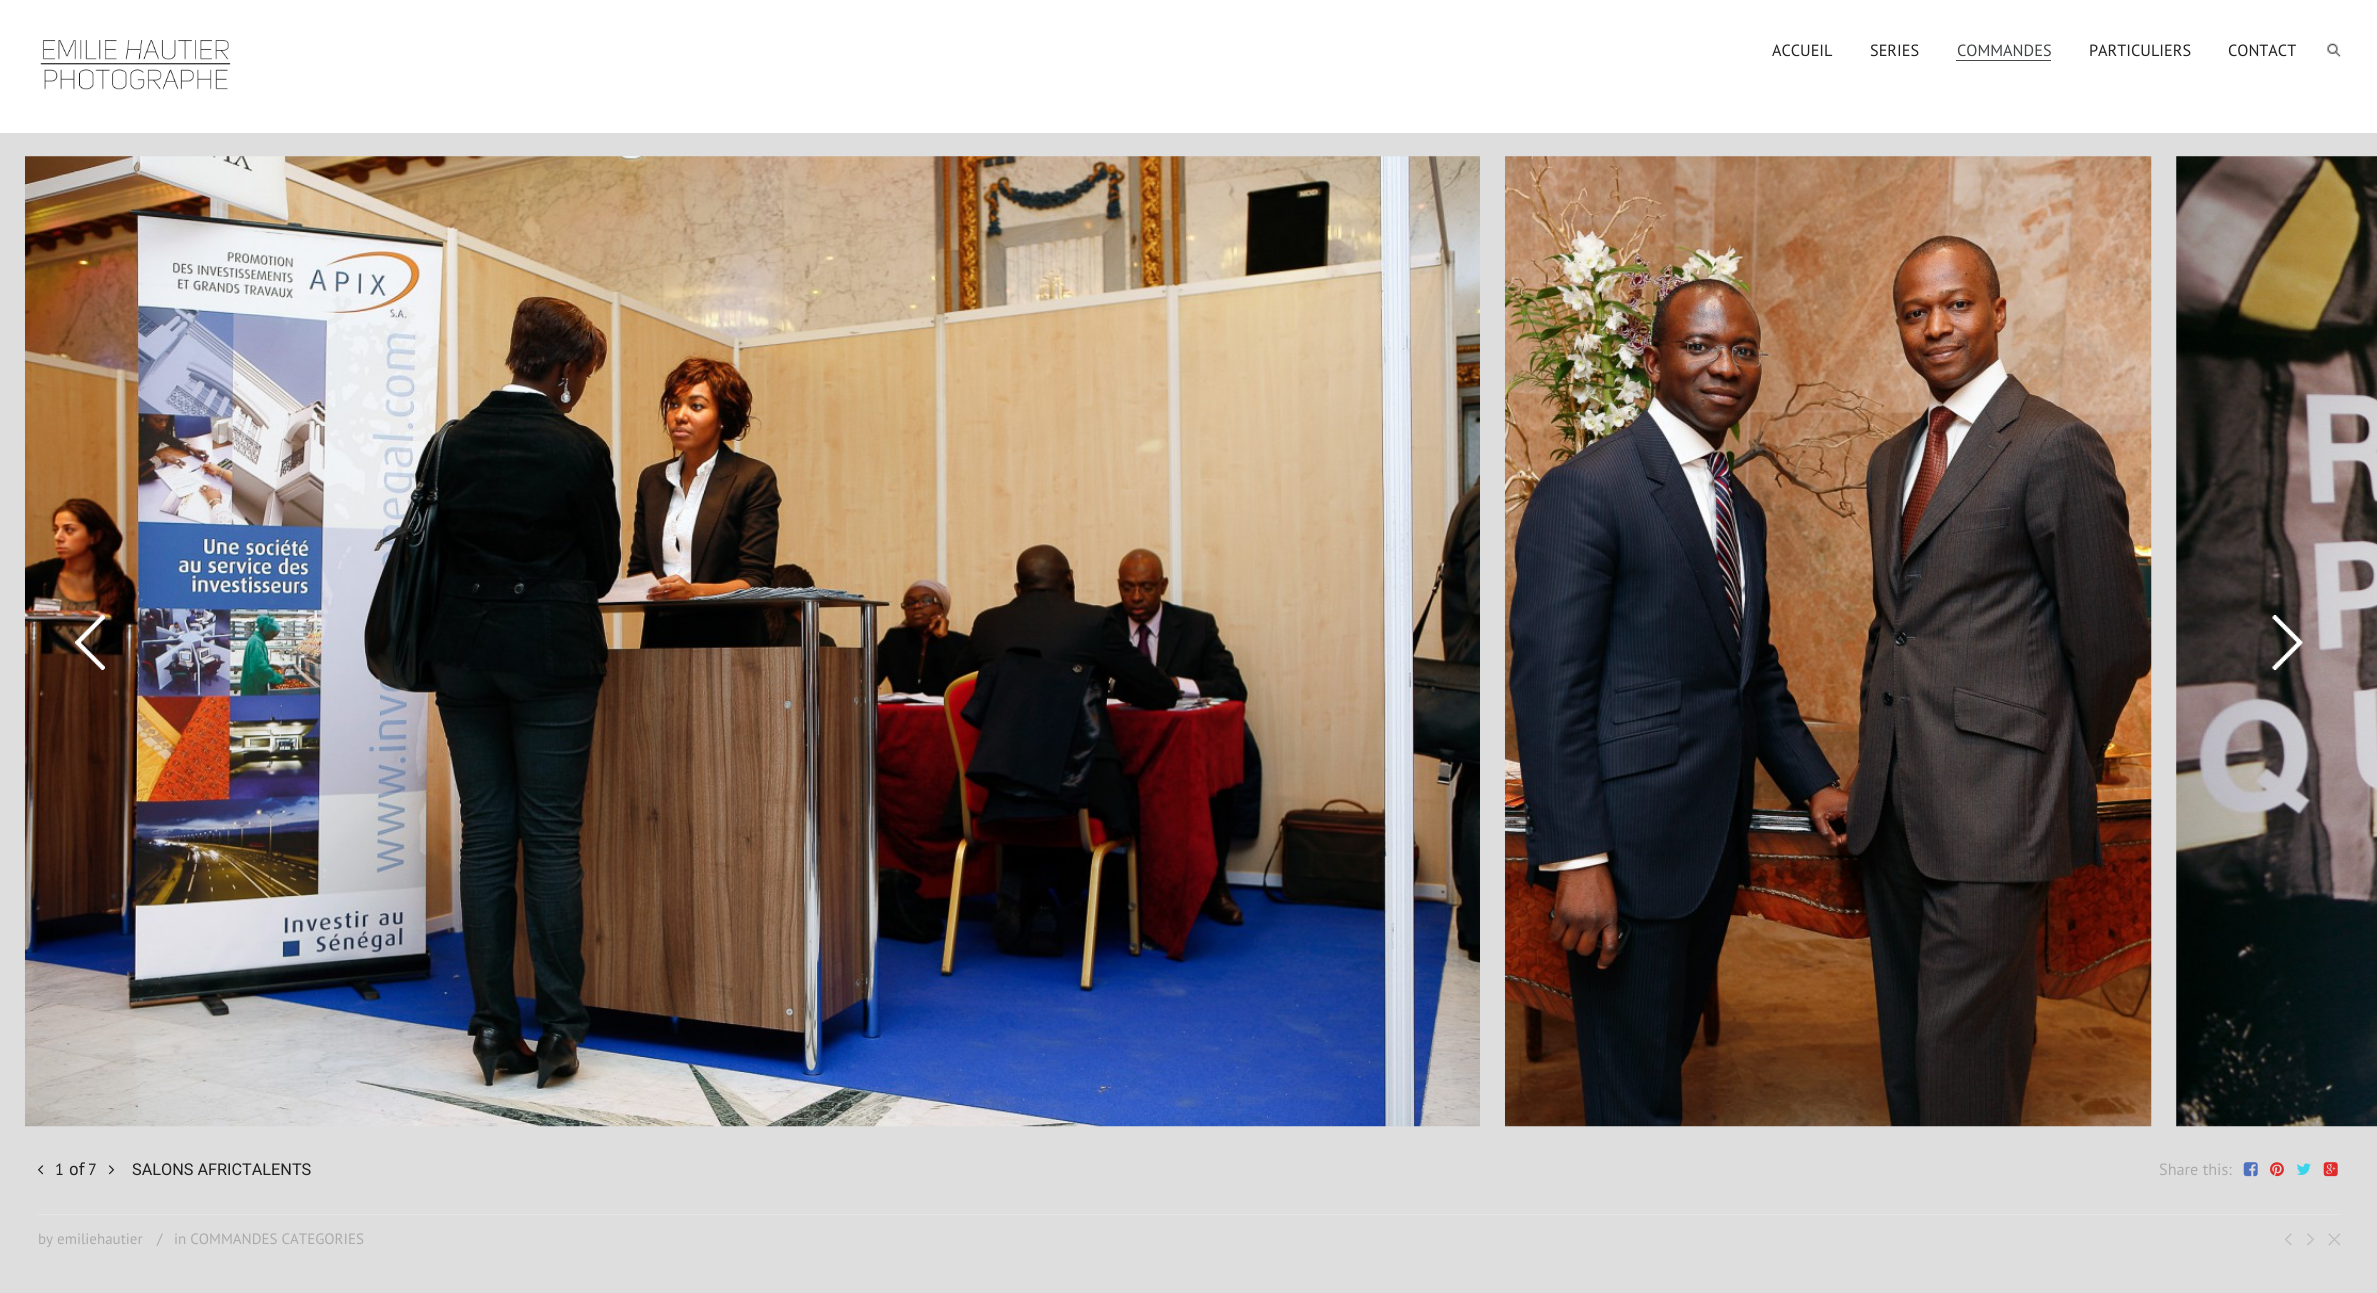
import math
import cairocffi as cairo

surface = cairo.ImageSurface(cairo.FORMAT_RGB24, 2377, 1293)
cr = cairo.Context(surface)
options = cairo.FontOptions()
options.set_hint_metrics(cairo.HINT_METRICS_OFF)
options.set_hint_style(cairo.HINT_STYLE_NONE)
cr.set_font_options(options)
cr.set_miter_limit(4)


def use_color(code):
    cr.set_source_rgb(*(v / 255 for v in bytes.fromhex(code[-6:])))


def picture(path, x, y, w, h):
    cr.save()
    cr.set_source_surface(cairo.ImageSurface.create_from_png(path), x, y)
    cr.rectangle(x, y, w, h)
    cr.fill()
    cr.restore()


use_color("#dedede")
cr.paint()
use_color("#ffffff")
cr.rectangle(0, 0, 2377, 133)
cr.fill()
picture("img1.png", 40, 40, 191, 50)
cr.select_font_face("PT Sans")
cr.set_font_size(16.25)
use_color("#222222")
cr.move_to(1772, 56)
cr.show_text("ACCUEIL")
cr.move_to(1870, 56)
cr.show_text("SERIES")
use_color("#434747")
cr.move_to(1957, 56)
cr.show_text("COMMANDES")
cr.rectangle(1956, 60, 95, 1)
cr.fill()
use_color("#222222")
cr.move_to(2089, 56)
cr.show_text("PARTICULIERS")
cr.move_to(2228, 56)
cr.show_text("CONTACT")
picture("img2.png", 2327, 43, 14, 14)
picture("img3.png", 25, 156, 1455, 971)
picture("img4.png", 1505, 156, 647, 971)
picture("img5.png", 2176, 156, 201, 971)
picture("img6.png", 75, 615, 30, 55)
picture("img7.png", 2272, 615, 31, 55)
picture("img8.png", 38, 1165, 6, 10)
cr.move_to(55, 1175)
cr.show_text("1")
cr.set_font_size(18)
cr.move_to(69, 1175)
cr.show_text("of")
cr.set_font_size(16.25)
cr.move_to(88, 1175)
cr.show_text("7")
picture("img9.png", 108, 1165, 7, 10)
cr.select_font_face("Roboto")
cr.move_to(132, 1175)
cr.show_text("SALONS AFRICTALENTS")
cr.select_font_face("PT Sans")
use_color("#aaaaaa")
cr.move_to(2159, 1175)
cr.show_text("Share this:")
picture("img10.png", 2243, 1162, 15, 15)
picture("img11.png", 2270, 1162, 14, 15)
picture("img12.png", 2296, 1163, 15, 12)
picture("img13.png", 2323, 1162, 15, 15)
use_color("#e6e6e6")
cr.rectangle(38, 1214, 2302, 1)
cr.fill()
cr.set_font_size(15)
use_color("#aaaaaa")
cr.move_to(38, 1244)
cr.show_text("by emiliehautier")
cr.move_to(157, 1244)
cr.show_text("/")
cr.move_to(174, 1244)
cr.show_text("in COMMANDES CATEGORIES")
picture("img14.png", 2285, 1233, 7, 13)
picture("img15.png", 2307, 1233, 7, 13)
picture("img16.png", 2328, 1233, 12, 13)
surface.write_to_png("result.png")
